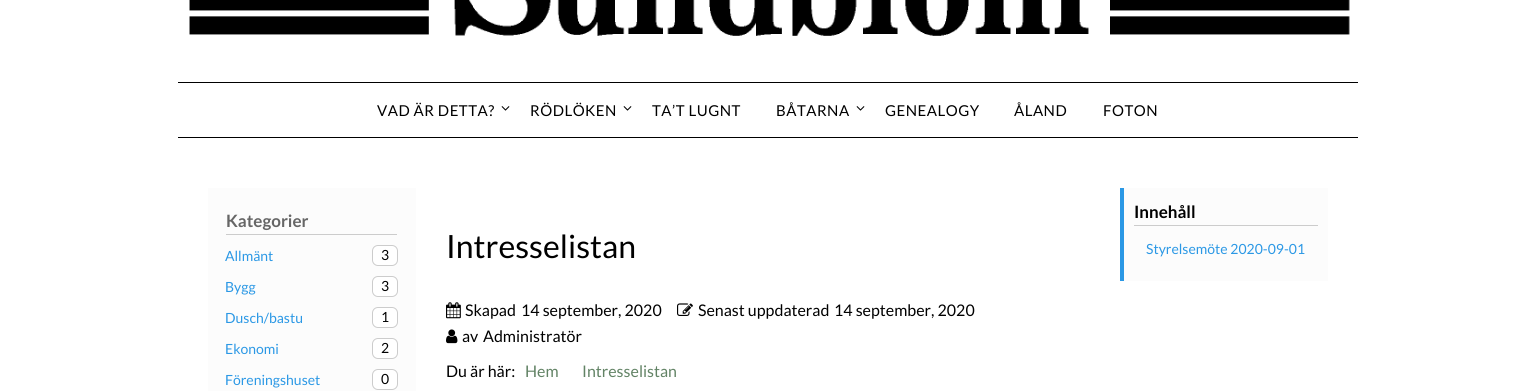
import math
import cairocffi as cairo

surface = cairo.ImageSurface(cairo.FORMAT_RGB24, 1535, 391)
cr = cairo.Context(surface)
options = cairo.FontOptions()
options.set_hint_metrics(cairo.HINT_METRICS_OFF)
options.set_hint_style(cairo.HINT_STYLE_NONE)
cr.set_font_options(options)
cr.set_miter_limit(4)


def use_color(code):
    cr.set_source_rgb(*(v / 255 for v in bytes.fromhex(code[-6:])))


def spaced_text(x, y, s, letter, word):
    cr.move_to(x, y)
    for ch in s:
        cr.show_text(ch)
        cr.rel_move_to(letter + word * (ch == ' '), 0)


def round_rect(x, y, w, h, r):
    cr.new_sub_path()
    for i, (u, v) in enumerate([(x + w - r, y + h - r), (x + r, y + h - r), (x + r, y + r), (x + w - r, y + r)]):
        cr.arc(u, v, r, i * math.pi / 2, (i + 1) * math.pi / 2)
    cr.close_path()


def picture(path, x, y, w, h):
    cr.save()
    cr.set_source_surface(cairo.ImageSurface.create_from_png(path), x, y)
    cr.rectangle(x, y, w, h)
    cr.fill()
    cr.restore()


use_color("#ffffff")
cr.paint()
picture("img1.png", 189, 0, 1161, 36)
use_color("#000000")
cr.rectangle(178, 82, 1180, 1)
cr.fill()
cr.rectangle(178, 137, 1180, 1)
cr.fill()
cr.select_font_face("Lato")
cr.set_font_size(15)
spaced_text(377, 116, "VAD ÄR DETTA?", 0.5, 0)
picture("img2.png", 501, 106, 9, 5)
spaced_text(530, 116, "RÖDLÖKEN", 0.5, 0)
picture("img2.png", 623, 106, 9, 5)
spaced_text(652, 116, "TA’T LUGNT", 0.5, 0)
spaced_text(776, 116, "BÅTARNA", 0.5, 0)
picture("img2.png", 856, 106, 9, 5)
spaced_text(885, 116, "GENEALOGY", 0.5, 0)
spaced_text(1014, 116, "ÅLAND", 0.5, 0)
spaced_text(1103, 116, "FOTON", 0.5, 0)
use_color("#fcfcfc")
cr.rectangle(208, 188, 208, 203)
cr.fill()
use_color("#cccccc")
cr.rectangle(226, 234, 171, 1)
cr.fill()
cr.select_font_face("Lato", cairo.FONT_SLANT_NORMAL, cairo.FONT_WEIGHT_BOLD)
cr.set_font_size(17)
use_color("#666666")
cr.move_to(226, 227)
cr.show_text("Kategorier")
cr.select_font_face("Lato")
cr.set_font_size(14)
use_color("#2b98e5")
cr.move_to(225, 261)
cr.show_text("Allmänt")
use_color("#ffffff")
round_rect(372.5, 245.5, 25, 20, 5.5)
cr.fill_preserve()
use_color("#cccccc")
cr.set_line_width(1)
cr.stroke()
use_color("#000000")
cr.move_to(381, 260)
cr.show_text("3")
use_color("#2b98e5")
cr.move_to(225, 292)
cr.show_text("Bygg")
use_color("#ffffff")
round_rect(372.5, 276.5, 25, 20, 5.5)
cr.fill_preserve()
use_color("#cccccc")
cr.stroke()
use_color("#000000")
cr.move_to(381, 291)
cr.show_text("3")
use_color("#2b98e5")
cr.move_to(225, 323)
cr.show_text("Dusch/bastu")
use_color("#ffffff")
round_rect(372.5, 307.5, 25, 20, 5.5)
cr.fill_preserve()
use_color("#cccccc")
cr.stroke()
use_color("#000000")
cr.move_to(381, 322)
cr.show_text("1")
use_color("#2b98e5")
cr.move_to(225, 354)
cr.show_text("Ekonomi")
use_color("#ffffff")
round_rect(372.5, 338.5, 25, 20, 5.5)
cr.fill_preserve()
use_color("#cccccc")
cr.stroke()
use_color("#000000")
cr.move_to(381, 353)
cr.show_text("2")
use_color("#2b98e5")
cr.move_to(225, 385)
cr.show_text("Föreningshuset")
use_color("#ffffff")
round_rect(372.5, 369.5, 25, 20, 5.5)
cr.fill_preserve()
use_color("#cccccc")
cr.stroke()
use_color("#000000")
cr.move_to(381, 384)
cr.show_text("0")
cr.set_font_size(32)
cr.move_to(446, 258)
cr.show_text("Intresselistan")
picture("img3.png", 446, 302, 15, 17)
cr.set_font_size(16)
cr.move_to(465, 316)
cr.show_text("Skapad")
cr.move_to(521, 316)
cr.show_text("14 september, 2020")
picture("img4.png", 677, 303, 16, 13)
cr.move_to(698, 316)
cr.show_text("Senast uppdaterad")
cr.move_to(834, 316)
cr.show_text("14 september, 2020")
picture("img5.png", 446, 329, 12, 15)
cr.move_to(462, 342)
cr.show_text("av")
cr.move_to(483, 342)
cr.show_text("Administratör")
cr.move_to(446, 377)
cr.show_text("Du är här:")
use_color("#628365")
cr.move_to(525, 377)
cr.show_text("Hem")
cr.move_to(582, 377)
cr.show_text("Intresselistan")
use_color("#fcfcfc")
cr.rectangle(1124, 188, 204, 93)
cr.fill()
use_color("#2b98e5")
cr.rectangle(1120, 188, 4, 93)
cr.fill()
use_color("#cccccc")
cr.rectangle(1134, 225, 184, 1)
cr.fill()
cr.select_font_face("Lato", cairo.FONT_SLANT_NORMAL, cairo.FONT_WEIGHT_BOLD)
cr.set_font_size(17)
use_color("#000000")
cr.move_to(1134, 218)
cr.show_text("Innehåll")
cr.select_font_face("Lato")
cr.set_font_size(14)
use_color("#2b98e5")
cr.move_to(1146, 254)
cr.show_text("Styrelsemöte 2020-09-01")
surface.write_to_png("result.png")
